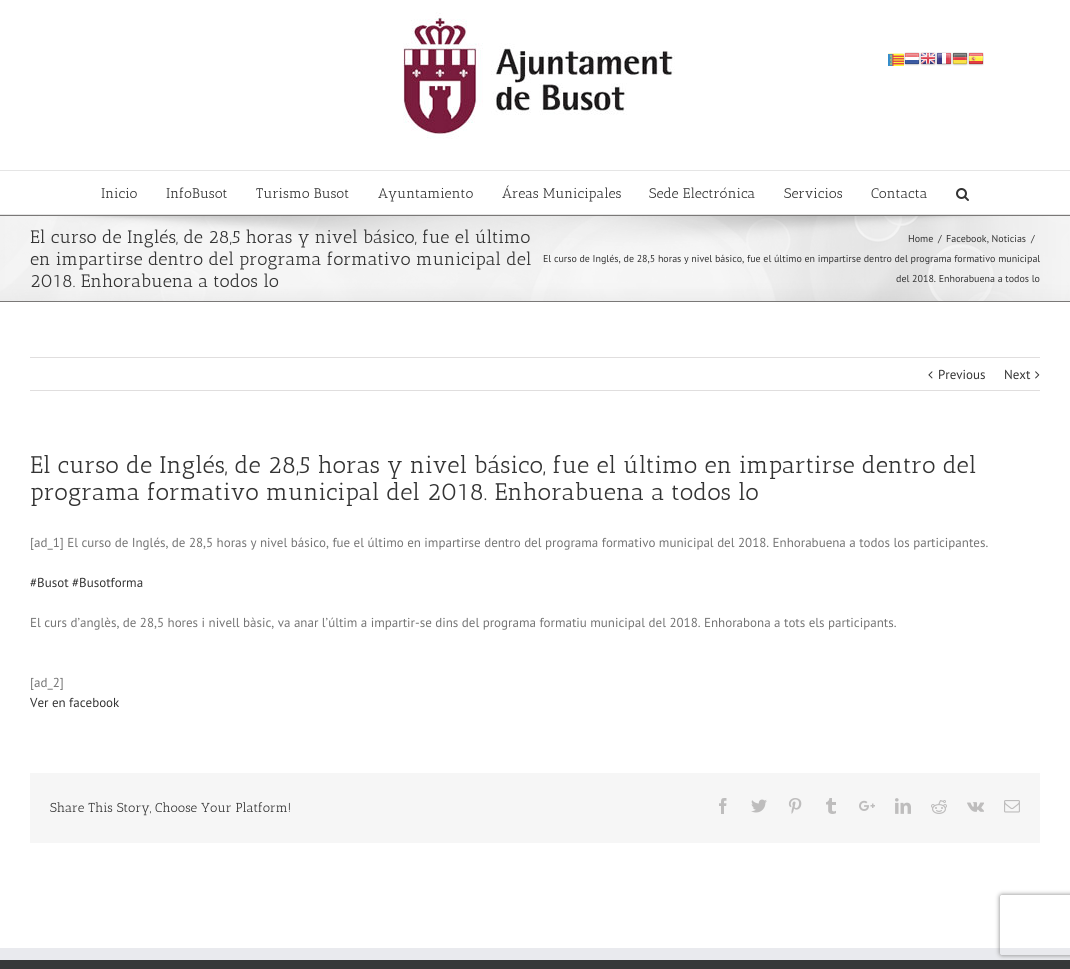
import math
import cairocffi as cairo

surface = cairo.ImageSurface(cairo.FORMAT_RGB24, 1070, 969)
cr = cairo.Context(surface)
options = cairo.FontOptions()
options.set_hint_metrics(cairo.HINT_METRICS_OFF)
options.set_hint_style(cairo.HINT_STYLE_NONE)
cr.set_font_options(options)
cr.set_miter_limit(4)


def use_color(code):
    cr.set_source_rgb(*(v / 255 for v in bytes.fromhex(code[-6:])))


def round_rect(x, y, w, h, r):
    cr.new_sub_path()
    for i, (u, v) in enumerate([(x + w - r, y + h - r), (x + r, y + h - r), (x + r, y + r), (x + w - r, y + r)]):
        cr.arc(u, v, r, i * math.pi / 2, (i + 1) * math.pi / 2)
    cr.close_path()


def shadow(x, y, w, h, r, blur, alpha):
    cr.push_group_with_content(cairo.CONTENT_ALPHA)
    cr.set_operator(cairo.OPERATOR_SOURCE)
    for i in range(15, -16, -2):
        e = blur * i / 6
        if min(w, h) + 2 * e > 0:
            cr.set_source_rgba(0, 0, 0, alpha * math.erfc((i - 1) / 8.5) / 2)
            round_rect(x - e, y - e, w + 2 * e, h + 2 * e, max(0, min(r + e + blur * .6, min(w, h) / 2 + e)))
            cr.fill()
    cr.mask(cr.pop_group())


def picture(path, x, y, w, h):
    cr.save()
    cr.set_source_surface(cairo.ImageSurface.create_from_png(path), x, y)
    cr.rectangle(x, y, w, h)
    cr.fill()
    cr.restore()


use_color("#ffffff")
cr.paint()
picture("img1.png", 888, 53, 16, 13)
picture("img2.png", 904, 52, 16, 14)
picture("img3.png", 920, 52, 16, 14)
picture("img4.png", 936, 52, 16, 14)
picture("img5.png", 952, 52, 16, 14)
picture("img6.png", 968, 52, 16, 14)
use_color("#e5e5e5")
cr.rectangle(0, 170, 1070, 1)
cr.fill()
picture("img7.png", 403, 12, 272, 127)
cr.rectangle(0, 214, 1070, 1)
cr.fill()
cr.select_font_face("Antic Slab")
cr.set_font_size(14)
use_color("#333333")
cr.move_to(101, 198)
cr.show_text("Inicio")
cr.move_to(166, 198)
cr.show_text("InfoBusot")
cr.move_to(256, 198)
cr.show_text("Turismo Busot")
cr.move_to(378, 198)
cr.show_text("Ayuntamiento")
cr.move_to(502, 198)
cr.show_text("Áreas Municipales")
cr.move_to(649, 198)
cr.show_text("Sede Electrónica")
cr.move_to(784, 198)
cr.show_text("Servicios")
cr.move_to(871, 198)
cr.show_text("Contacta")
picture("img8.png", 956, 188, 13, 13)
use_color("#f6f6f6")
cr.rectangle(0, 216, 1070, 85)
cr.fill()
picture("img9.png", 0, 216, 1070, 85)
use_color("#7a7877")
cr.rectangle(0, 215, 1070, 1)
cr.fill()
cr.rectangle(0, 301, 1070, 1)
cr.fill()
cr.set_font_size(18)
use_color("#333333")
cr.move_to(30, 243)
cr.show_text("El curso de Inglés, de 28,5 horas y nivel básico, fue el último")
cr.move_to(30, 265)
cr.show_text("en impartirse dentro del programa formativo municipal del")
cr.move_to(30, 287)
cr.show_text("2018. Enhorabuena a todos lo")
cr.select_font_face("PT Sans")
cr.set_font_size(10)
cr.move_to(908, 242)
cr.show_text("Home")
cr.move_to(938, 242)
cr.show_text("/")
cr.move_to(946, 242)
cr.show_text("Facebook, Noticias")
cr.move_to(1031, 242)
cr.show_text("/")
cr.move_to(543, 262)
cr.show_text("El curso de Inglés, de 28,5 horas y nivel básico, fue el último en impartirse dentro del programa formativo municipal")
cr.move_to(896, 282)
cr.show_text("del 2018. Enhorabuena a todos lo")
use_color("#e0dede")
cr.rectangle(30, 357, 1010, 1)
cr.fill()
cr.rectangle(30, 390, 1010, 1)
cr.fill()
picture("img10.png", 928, 371, 5, 8)
cr.set_font_size(13)
use_color("#333333")
cr.move_to(938, 379)
cr.show_text("Previous")
cr.move_to(1004, 379)
cr.show_text("Next")
picture("img11.png", 1035, 371, 5, 8)
cr.select_font_face("Antic Slab")
cr.set_font_size(24)
cr.move_to(30, 473)
cr.show_text("El curso de Inglés, de 28,5 horas y nivel básico, fue el último en impartirse dentro del")
cr.move_to(30, 500)
cr.show_text("programa formativo municipal del 2018. Enhorabuena a todos lo")
cr.select_font_face("PT Sans")
cr.set_font_size(13)
use_color("#747474")
cr.move_to(30, 547)
cr.show_text("[ad_1] El curso de Inglés, de 28,5 horas y nivel básico, fue el último en impartirse dentro del programa formativo municipal del 2018. Enhorabuena a todos los participantes.")
use_color("#333333")
cr.move_to(30, 587)
cr.show_text("#Busot #Busotforma")
use_color("#747474")
cr.move_to(30, 627)
cr.show_text("El curs d’anglès, de 28,5 hores i nivell bàsic, va anar l’últim a impartir-se dins del programa formatiu municipal del 2018. Enhorabona a tots els participants.")
cr.move_to(30, 687)
cr.show_text("[ad_2]")
use_color("#333333")
cr.move_to(30, 707)
cr.show_text("Ver en facebook")
use_color("#f6f6f6")
cr.rectangle(30, 773, 1010, 70)
cr.fill()
cr.select_font_face("Antic Slab")
use_color("#333333")
cr.move_to(50, 812)
cr.show_text("Share This Story, Choose Your Platform!")
picture("img12.png", 719, 798, 8, 16)
picture("img13.png", 751, 799, 16, 14)
picture("img14.png", 788, 798, 14, 16)
picture("img15.png", 826, 798, 10, 16)
picture("img16.png", 859, 800, 16, 11)
picture("img17.png", 895, 798, 16, 16)
picture("img18.png", 931, 800, 16, 14)
picture("img19.png", 967, 802, 17, 10)
picture("img20.png", 1004, 800, 16, 13)
use_color("#363839")
cr.rectangle(0, 960, 1070, 9)
cr.fill()
use_color("#e9eaee")
cr.rectangle(0, 948, 1070, 12)
cr.fill()
cr.save()
cr.set_fill_rule(cairo.FILL_RULE_EVEN_ODD)
cr.new_path()
cr.move_to(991, 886)
cr.line_to(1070, 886)
cr.line_to(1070, 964)
cr.line_to(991, 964)
cr.close_path()
cr.move_to(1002, 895)
cr.line_to(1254, 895)
cr.curve_to(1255, 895, 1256, 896, 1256, 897)
cr.line_to(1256, 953)
cr.curve_to(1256, 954, 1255, 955, 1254, 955)
cr.line_to(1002, 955)
cr.curve_to(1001, 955, 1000, 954, 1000, 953)
cr.line_to(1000, 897)
cr.curve_to(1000, 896, 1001, 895, 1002, 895)
cr.close_path()
cr.clip()
use_color("#808080")
shadow(1000, 895, 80, 60, 2, 2.5, 1)
cr.restore()
surface.write_to_png("result.png")
